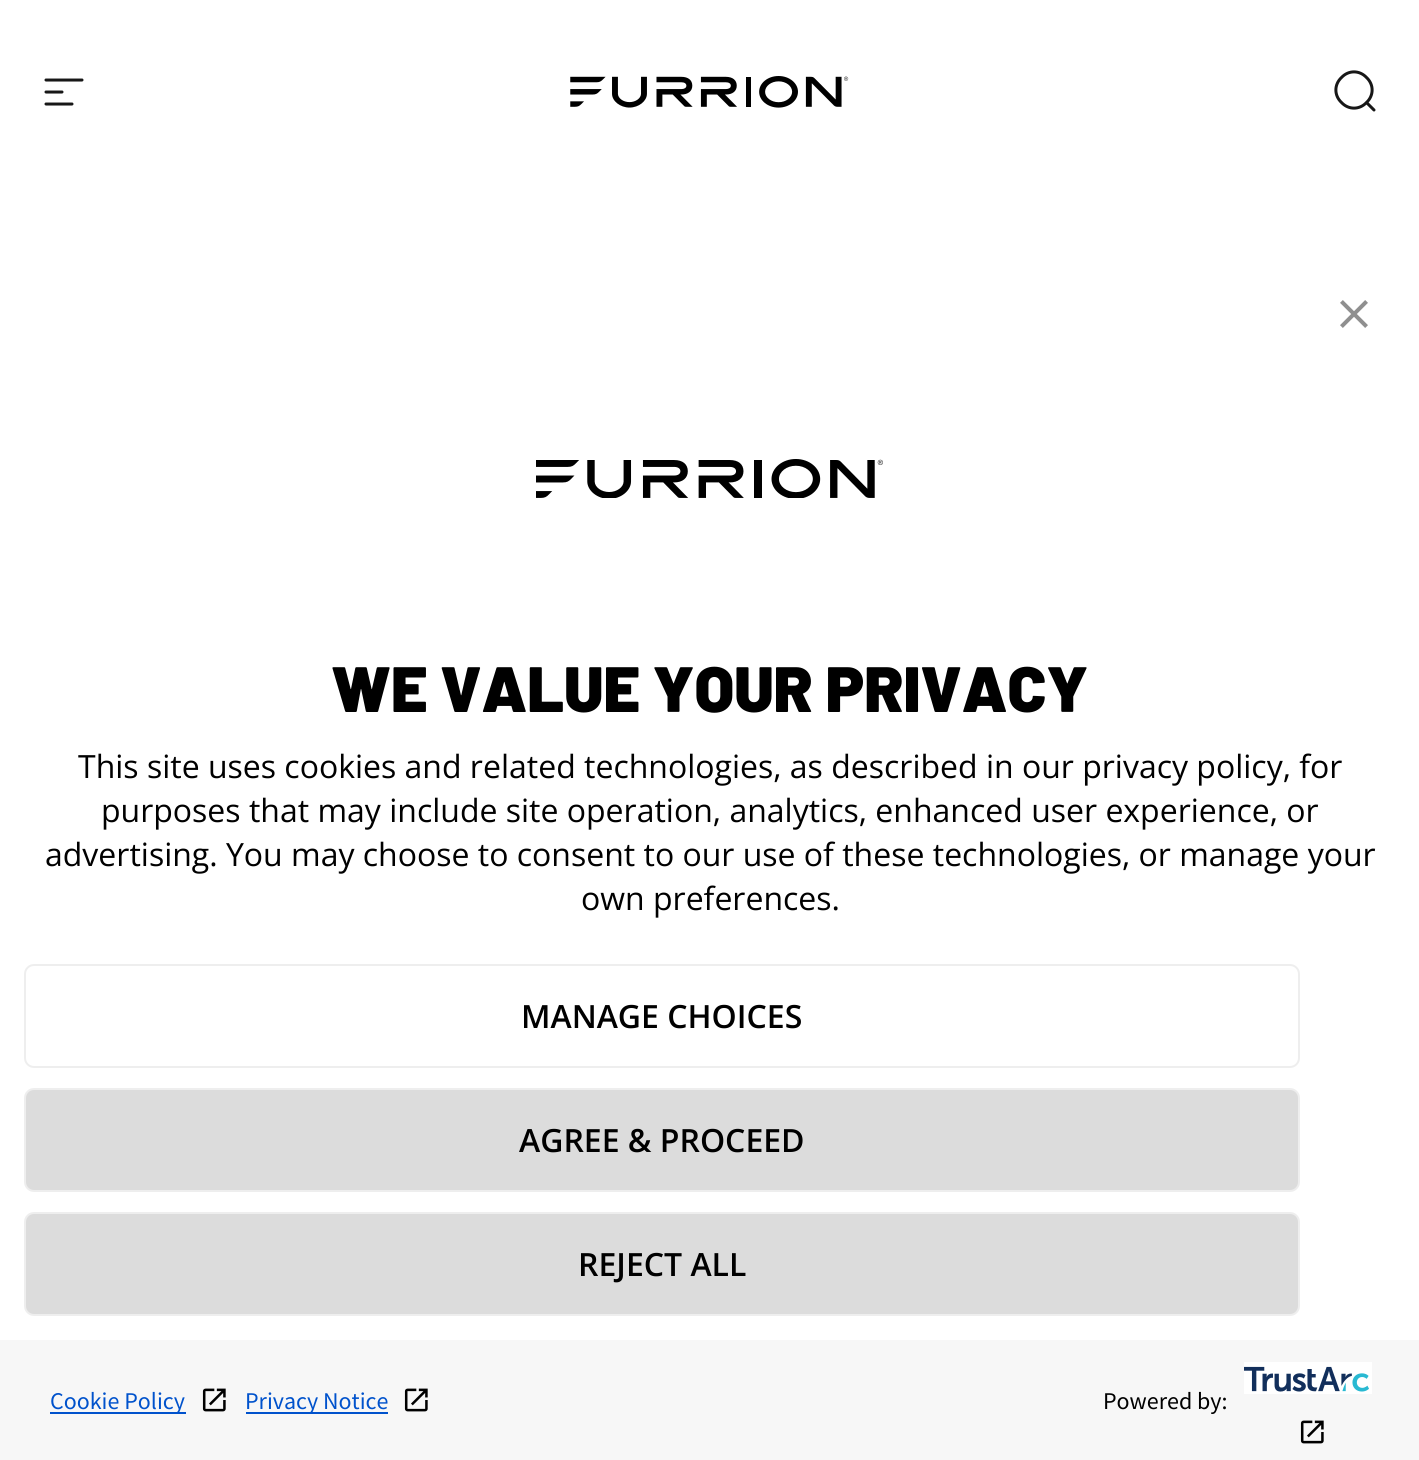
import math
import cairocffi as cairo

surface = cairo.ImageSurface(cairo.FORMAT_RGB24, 1419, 1460)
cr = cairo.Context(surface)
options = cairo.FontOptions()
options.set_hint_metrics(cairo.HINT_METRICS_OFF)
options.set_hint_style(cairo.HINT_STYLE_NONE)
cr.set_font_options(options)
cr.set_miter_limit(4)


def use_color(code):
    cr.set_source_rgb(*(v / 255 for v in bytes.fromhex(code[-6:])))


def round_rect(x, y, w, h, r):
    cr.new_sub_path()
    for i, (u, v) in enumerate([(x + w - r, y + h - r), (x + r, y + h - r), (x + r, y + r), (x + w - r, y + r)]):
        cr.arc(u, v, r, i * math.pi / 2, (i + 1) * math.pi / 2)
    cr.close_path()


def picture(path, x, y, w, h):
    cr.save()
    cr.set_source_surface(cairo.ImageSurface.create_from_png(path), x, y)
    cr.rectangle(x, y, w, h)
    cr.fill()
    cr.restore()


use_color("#ffffff")
cr.paint()
cr.new_path()
cr.move_to(46, 80)
cr.line_to(82, 80)
cr.move_to(46, 92)
cr.line_to(62, 92)
cr.move_to(46, 104)
cr.line_to(72, 104)
use_color("#171717")
cr.set_line_width(3)
cr.set_line_cap(cairo.LINE_CAP_ROUND)
cr.stroke()
picture("img1.png", 570, 76, 279, 32)
cr.new_path()
cr.move_to(1374, 110)
cr.line_to(1366.5, 102.5)
cr.move_to(1366.5, 102.5)
cr.curve_to(1374, 95.5, 1374, 84.5, 1366.5, 77.5)
cr.curve_to(1359.5, 70, 1348.5, 70, 1341.5, 77.5)
cr.curve_to(1334, 84.5, 1334, 95.5, 1341.5, 102.5)
cr.curve_to(1348.5, 110, 1359.5, 110, 1366.5, 102.5)
cr.close_path()
cr.stroke()
picture("img2.png", 40, 232, 1340, 16)
picture("img3.png", 1340, 300, 28, 28)
picture("img4.png", 536, 459, 347, 39)
cr.select_font_face("Barlow Black")
cr.set_font_size(64)
use_color("#000000")
cr.move_to(331, 712)
cr.show_text("WE VALUE YOUR PRIVACY")
cr.select_font_face("Open Sans")
cr.set_font_size(32)
cr.move_to(78, 778)
cr.show_text("This site uses cookies and related technologies, as described in our privacy policy, for")
cr.move_to(101, 822)
cr.show_text("purposes that may include site operation, analytics, enhanced user experience, or")
cr.move_to(45, 866)
cr.show_text("advertising. You may choose to consent to our use of these technologies, or manage your")
cr.move_to(581, 910)
cr.show_text("own preferences.")
round_rect(25, 965, 1274, 102, 9)
use_color("#eeeeee")
cr.set_line_width(2)
cr.set_line_cap(cairo.LINE_CAP_BUTT)
cr.stroke()
cr.select_font_face("Open Sans SemiBold")
use_color("#000000")
cr.move_to(521, 1028)
cr.show_text("MANAGE CHOICES")
use_color("#dcdcdc")
round_rect(25, 1089, 1274, 102, 9)
cr.fill_preserve()
use_color("#eeeeee")
cr.stroke()
use_color("#000000")
cr.move_to(519, 1152)
cr.show_text("AGREE & PROCEED")
use_color("#dcdcdc")
round_rect(25, 1213, 1274, 102, 9)
cr.fill_preserve()
use_color("#eeeeee")
cr.stroke()
use_color("#000000")
cr.move_to(578, 1276)
cr.show_text("REJECT ALL")
use_color("#f7f7f7")
cr.rectangle(0, 1340, 1419, 120)
cr.fill()
use_color("#0052cc")
cr.rectangle(50, 1412, 136, 2)
cr.fill()
cr.select_font_face("Source Sans Pro")
cr.set_font_size(24)
cr.move_to(50, 1409)
cr.show_text("Cookie Policy")
picture("img5.png", 202, 1388, 24, 24)
cr.rectangle(246, 1412, 142, 2)
cr.fill()
cr.move_to(245, 1409)
cr.show_text("Privacy Notice")
picture("img5.png", 404, 1388, 24, 24)
use_color("#000000")
cr.move_to(1103, 1409)
cr.show_text("Powered by:")
picture("img6.png", 1244, 1362, 128, 32)
picture("img5.png", 1300, 1420, 24, 24)
surface.write_to_png("result.png")
